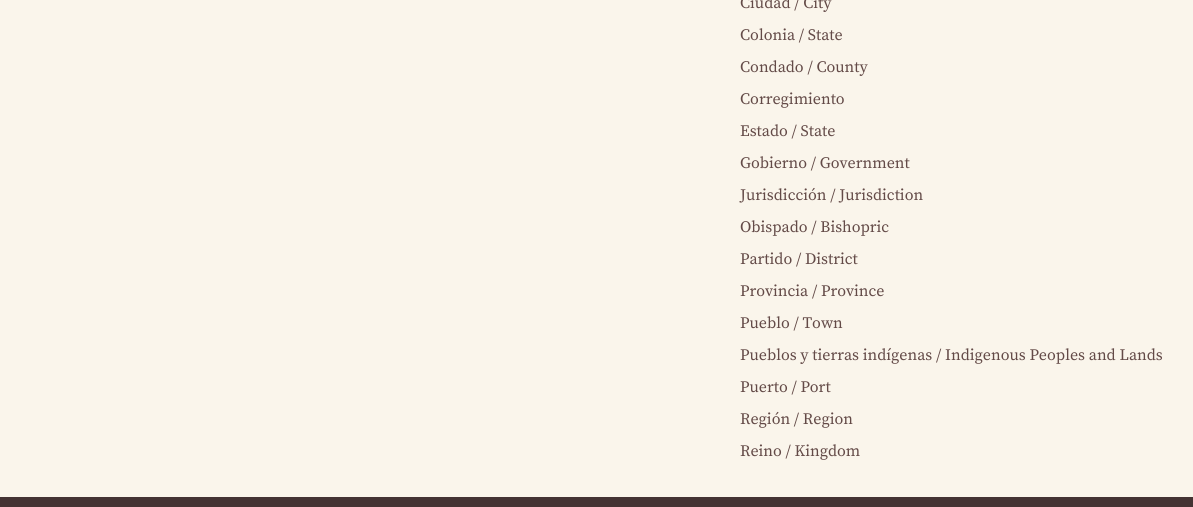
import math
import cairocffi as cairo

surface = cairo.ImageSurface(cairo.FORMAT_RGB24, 1193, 507)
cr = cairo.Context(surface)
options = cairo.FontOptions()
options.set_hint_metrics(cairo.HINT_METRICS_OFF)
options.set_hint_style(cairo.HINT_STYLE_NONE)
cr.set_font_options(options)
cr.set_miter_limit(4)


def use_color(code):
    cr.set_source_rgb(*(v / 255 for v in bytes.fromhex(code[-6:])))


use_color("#faf5eb")
cr.paint()
cr.select_font_face("Source Serif Pro")
cr.set_font_size(16)
use_color("#634a47")
cr.move_to(740, 8)
cr.show_text("Ciudad / City")
cr.move_to(740, 40)
cr.show_text("Colonia / State")
cr.move_to(740, 72)
cr.show_text("Condado / County")
cr.move_to(740, 104)
cr.show_text("Corregimiento")
cr.move_to(740, 136)
cr.show_text("Estado / State")
cr.move_to(740, 168)
cr.show_text("Gobierno / Government")
cr.move_to(740, 200)
cr.show_text("Jurisdicción / Jurisdiction")
cr.move_to(740, 232)
cr.show_text("Obispado / Bishopric")
cr.move_to(740, 264)
cr.show_text("Partido / District")
cr.move_to(740, 296)
cr.show_text("Provincia / Province")
cr.move_to(740, 328)
cr.show_text("Pueblo / Town")
cr.move_to(740, 360)
cr.show_text("Pueblos y tierras indígenas / Indigenous Peoples and Lands")
cr.move_to(740, 392)
cr.show_text("Puerto / Port")
cr.move_to(740, 424)
cr.show_text("Región / Region")
cr.move_to(740, 456)
cr.show_text("Reino / Kingdom")
use_color("#443333")
cr.rectangle(0, 497, 1193, 10)
cr.fill()
surface.write_to_png("result.png")
